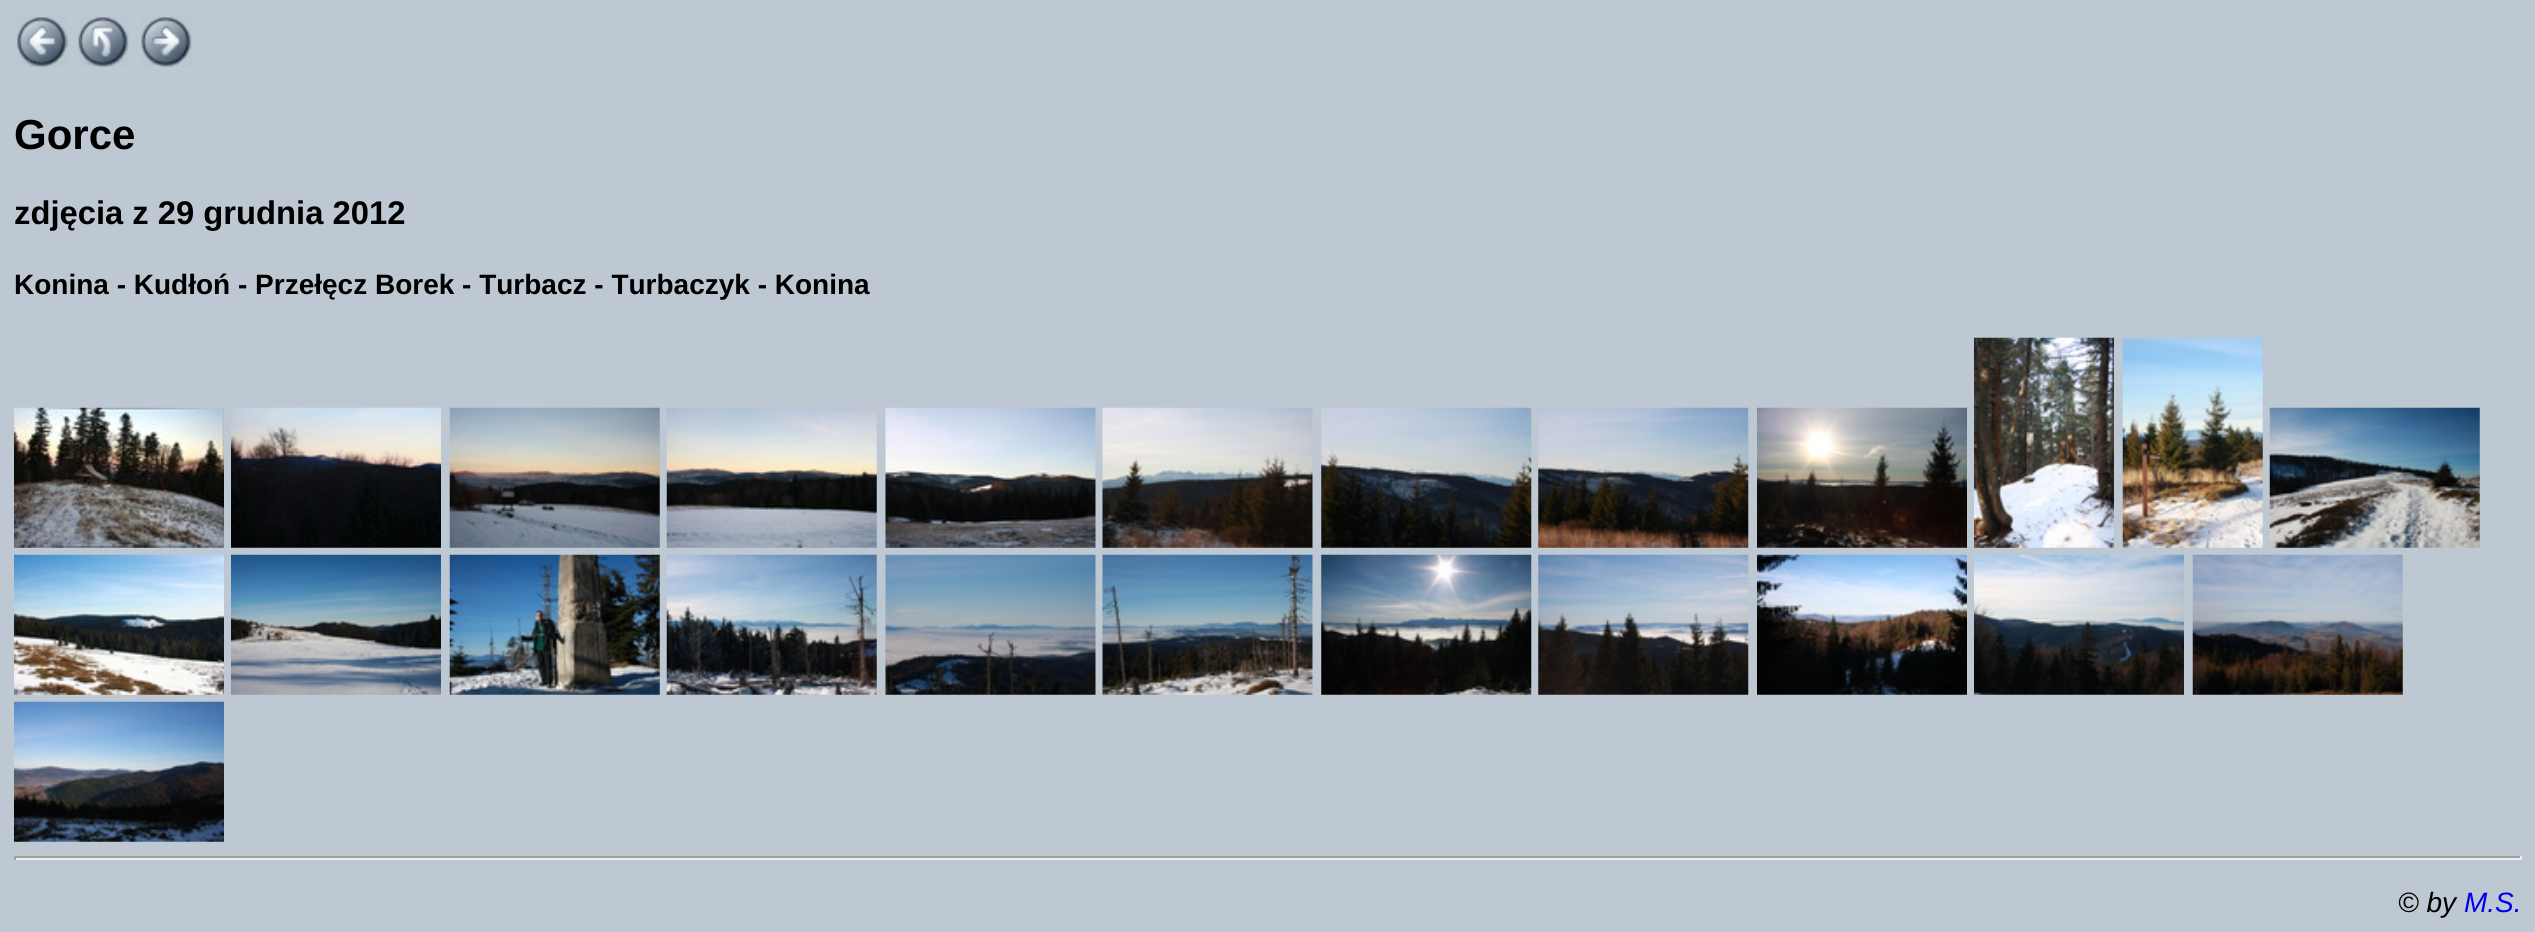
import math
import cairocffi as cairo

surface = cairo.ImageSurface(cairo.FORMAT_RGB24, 2535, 932)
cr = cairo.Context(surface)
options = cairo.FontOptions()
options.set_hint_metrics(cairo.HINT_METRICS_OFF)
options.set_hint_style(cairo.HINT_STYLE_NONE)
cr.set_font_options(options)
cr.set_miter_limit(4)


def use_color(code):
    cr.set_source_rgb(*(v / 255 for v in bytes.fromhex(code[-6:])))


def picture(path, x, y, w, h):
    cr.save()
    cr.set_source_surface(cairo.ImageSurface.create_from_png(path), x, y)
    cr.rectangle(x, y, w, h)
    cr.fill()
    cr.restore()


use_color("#bec8d2")
cr.paint()
picture("img1.png", 17, 17, 52, 50)
picture("img2.png", 78, 17, 51, 50)
picture("img3.png", 141, 16, 51, 51)
cr.select_font_face("Liberation Sans", cairo.FONT_SLANT_NORMAL, cairo.FONT_WEIGHT_BOLD)
cr.set_font_size(42)
use_color("#000000")
cr.move_to(14, 149)
cr.show_text("Gorce")
cr.set_font_size(32.75)
cr.move_to(14, 224)
cr.show_text("zdjęcia z 29 grudnia 2012")
cr.set_font_size(28)
cr.move_to(14, 294)
cr.show_text("Konina - Kudłoń - Przełęcz Borek - Turbacz - Turbaczyk - Konina")
picture("img4.png", 14, 407, 210, 141)
picture("img5.png", 231, 407, 210, 141)
picture("img6.png", 449, 407, 211, 141)
picture("img7.png", 666, 407, 211, 141)
picture("img8.png", 885, 407, 211, 141)
picture("img9.png", 1102, 407, 211, 141)
picture("img10.png", 1321, 407, 211, 141)
picture("img11.png", 1538, 407, 211, 141)
picture("img12.png", 1757, 407, 210, 141)
picture("img13.png", 1974, 337, 140, 211)
picture("img14.png", 2122, 337, 141, 211)
picture("img15.png", 2269, 407, 211, 141)
picture("img16.png", 14, 554, 210, 141)
picture("img17.png", 231, 554, 210, 141)
picture("img18.png", 449, 554, 211, 141)
picture("img19.png", 666, 554, 211, 141)
picture("img20.png", 885, 554, 211, 141)
picture("img21.png", 1102, 554, 211, 141)
picture("img22.png", 1321, 554, 211, 141)
picture("img23.png", 1538, 554, 211, 141)
picture("img24.png", 1757, 554, 210, 141)
picture("img25.png", 1974, 554, 210, 141)
picture("img26.png", 2192, 554, 211, 141)
picture("img27.png", 14, 701, 210, 141)
use_color("#9f9f9f")
cr.rectangle(14, 856, 2508, 2)
cr.fill()
use_color("#eeeeee")
cr.rectangle(2520, 856, 2, 4)
cr.fill()
cr.rectangle(14, 858, 2508, 2)
cr.fill()
use_color("#9f9f9f")
cr.rectangle(14, 856, 2, 4)
cr.fill()
cr.select_font_face("Liberation Sans", cairo.FONT_SLANT_ITALIC)
use_color("#000000")
cr.move_to(2398, 912)
cr.show_text("© by")
use_color("#0000ee")
cr.move_to(2464, 912)
cr.show_text("M.S.")
surface.write_to_png("result.png")
